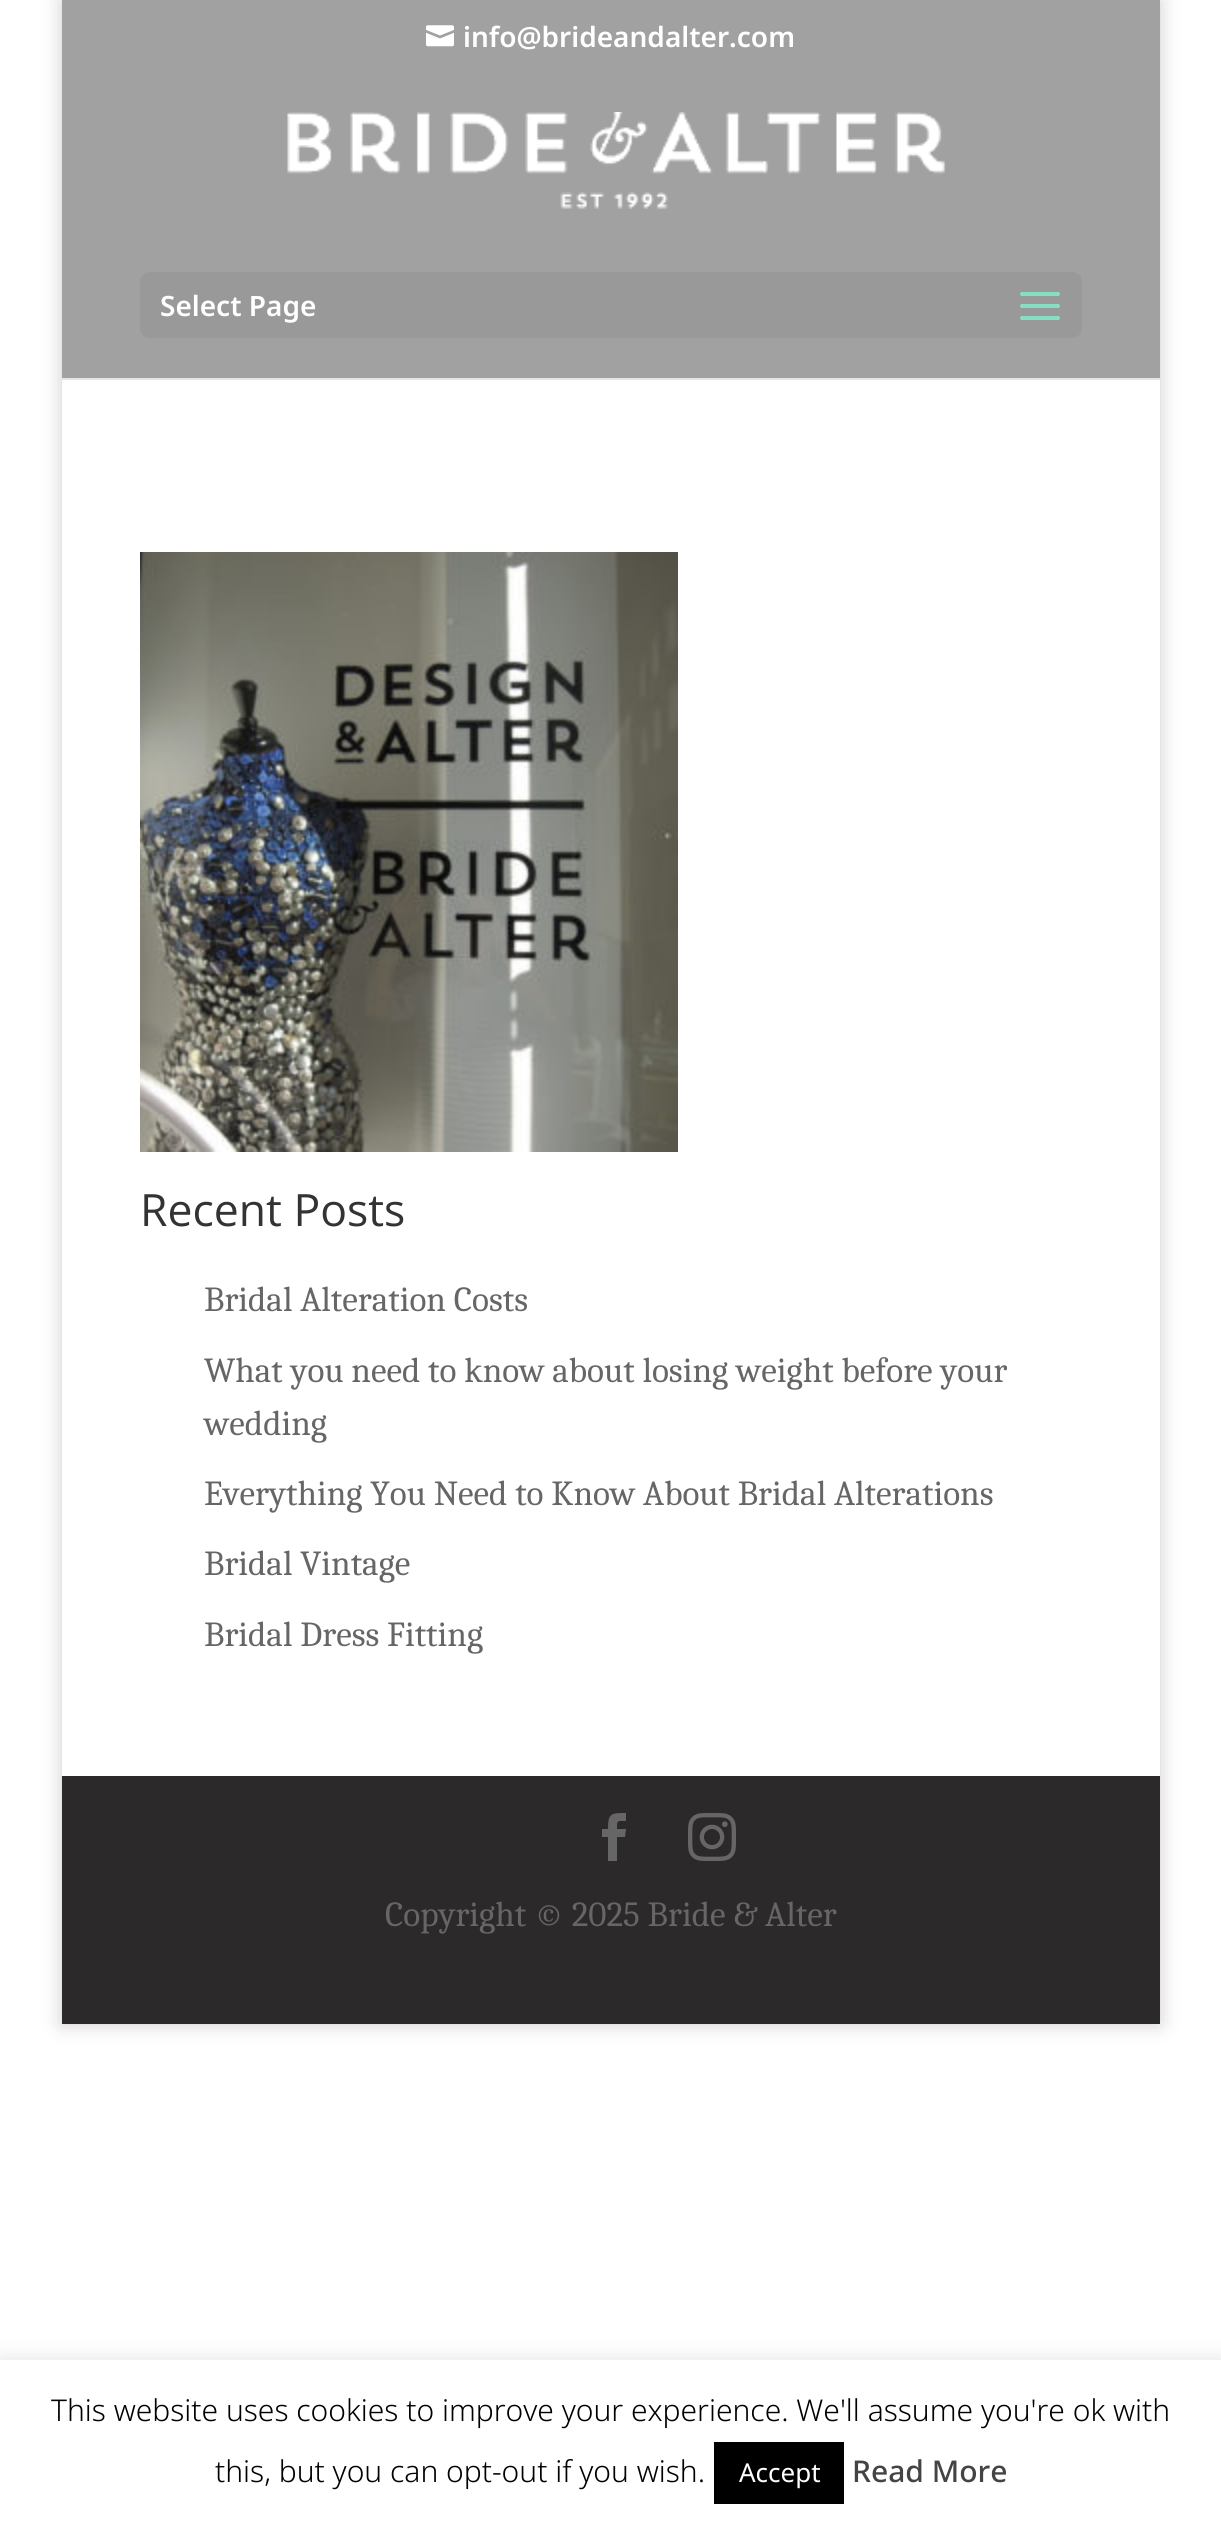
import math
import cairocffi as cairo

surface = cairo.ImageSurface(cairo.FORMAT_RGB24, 1221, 2528)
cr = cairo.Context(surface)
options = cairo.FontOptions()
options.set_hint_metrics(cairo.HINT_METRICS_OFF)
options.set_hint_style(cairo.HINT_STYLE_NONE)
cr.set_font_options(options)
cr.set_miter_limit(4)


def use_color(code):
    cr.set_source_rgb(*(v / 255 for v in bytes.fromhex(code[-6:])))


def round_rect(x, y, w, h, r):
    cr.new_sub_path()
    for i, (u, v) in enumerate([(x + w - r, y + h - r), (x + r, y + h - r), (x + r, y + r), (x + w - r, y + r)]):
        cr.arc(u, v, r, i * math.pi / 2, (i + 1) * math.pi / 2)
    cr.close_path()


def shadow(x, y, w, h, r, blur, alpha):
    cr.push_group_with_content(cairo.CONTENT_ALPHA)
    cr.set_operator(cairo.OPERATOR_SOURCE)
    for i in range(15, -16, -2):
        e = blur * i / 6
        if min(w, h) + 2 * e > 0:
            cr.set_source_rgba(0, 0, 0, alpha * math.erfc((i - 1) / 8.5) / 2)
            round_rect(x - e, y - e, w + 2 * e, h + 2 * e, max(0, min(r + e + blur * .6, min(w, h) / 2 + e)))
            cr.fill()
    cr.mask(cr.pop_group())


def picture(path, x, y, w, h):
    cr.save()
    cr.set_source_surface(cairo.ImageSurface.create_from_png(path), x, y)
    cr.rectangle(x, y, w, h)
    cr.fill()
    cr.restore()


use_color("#ffffff")
cr.paint()
cr.save()
cr.set_fill_rule(cairo.FILL_RULE_EVEN_ODD)
cr.new_path()
cr.move_to(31, 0)
cr.line_to(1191, 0)
cr.line_to(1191, 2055)
cr.line_to(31, 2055)
cr.close_path()
cr.move_to(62, 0)
cr.line_to(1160, 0)
cr.line_to(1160, 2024)
cr.line_to(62, 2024)
cr.close_path()
cr.clip()
use_color("#000000")
shadow(62, 0, 1098, 2024, 0, 10, 0.2)
cr.restore()
use_color("#a1a1a1")
cr.rectangle(62, 0, 1098, 378)
cr.fill()
picture("img1.png", 426, 25, 28, 22)
cr.select_font_face("Noto Sans SemiBold")
cr.set_font_size(28)
use_color("#ffffff")
cr.move_to(463, 47)
cr.show_text("info@brideandalter.com")
use_color("#e6e6e6")
cr.rectangle(62, 378, 1098, 2)
cr.fill()
picture("img2.png", 287, 112, 659, 97)
use_color("#999999")
round_rect(140, 272, 942, 66, 10)
cr.fill()
use_color("#ffffff")
cr.move_to(160, 316)
cr.show_text("Select Page")
picture("img3.png", 1020, 292, 40, 28)
picture("img4.png", 140, 552, 538, 600)
cr.select_font_face("Open Sans")
cr.set_font_size(44.5)
use_color("#333333")
cr.move_to(140, 1226)
cr.show_text("Recent Posts")
cr.select_font_face("Caladea")
cr.set_font_size(35.2)
use_color("#666666")
cr.move_to(204, 1311)
cr.show_text("Bridal Alteration Costs")
cr.move_to(204, 1382)
cr.show_text("What you need to know about losing weight before your")
cr.move_to(204, 1435)
cr.show_text("wedding")
cr.move_to(204, 1505)
cr.show_text("Everything You Need to Know About Bridal Alterations")
cr.move_to(204, 1575)
cr.show_text("Bridal Vintage")
cr.move_to(204, 1646)
cr.show_text("Bridal Dress Fitting")
use_color("#2c292a")
cr.rectangle(62, 1776, 1098, 248)
cr.fill()
use_color("#666666")
cr.new_path()
cr.move_to(608, 1861)
cr.line_to(617, 1861)
cr.line_to(617, 1837)
cr.line_to(625, 1837)
cr.line_to(626, 1829)
cr.line_to(617, 1829)
cr.curve_to(617, 1820, 617, 1821, 626, 1821)
cr.line_to(626, 1813)
cr.curve_to(611, 1813, 608, 1813, 608, 1829)
cr.line_to(602, 1829)
cr.line_to(602, 1837)
cr.line_to(608, 1837)
cr.close_path()
cr.fill()
picture("img5.png", 688, 1813, 48, 48)
cr.move_to(385, 1926)
cr.show_text("Copyright © 2025 Bride & Alter")
use_color("#acabab")
shadow(0, 2358, 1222, 168, 0, 10, 0.3)
use_color("#ffffff")
cr.rectangle(0, 2360, 1221, 168)
cr.fill()
cr.select_font_face("Noto Sans Light")
cr.set_font_size(30)
use_color("#000000")
cr.move_to(51, 2421)
cr.show_text("This website uses cookies to improve your experience. We'll assume you're ok with")
cr.move_to(215, 2482)
cr.show_text("this, but you can opt-out if you wish.")
cr.rectangle(714, 2442, 130, 62)
cr.fill()
cr.select_font_face("Noto Sans")
cr.set_font_size(26)
use_color("#ffffff")
cr.move_to(739, 2482)
cr.show_text("Accept")
cr.select_font_face("Noto Sans Medium")
cr.set_font_size(30)
use_color("#444444")
cr.move_to(852, 2482)
cr.show_text("Read More")
surface.write_to_png("result.png")
